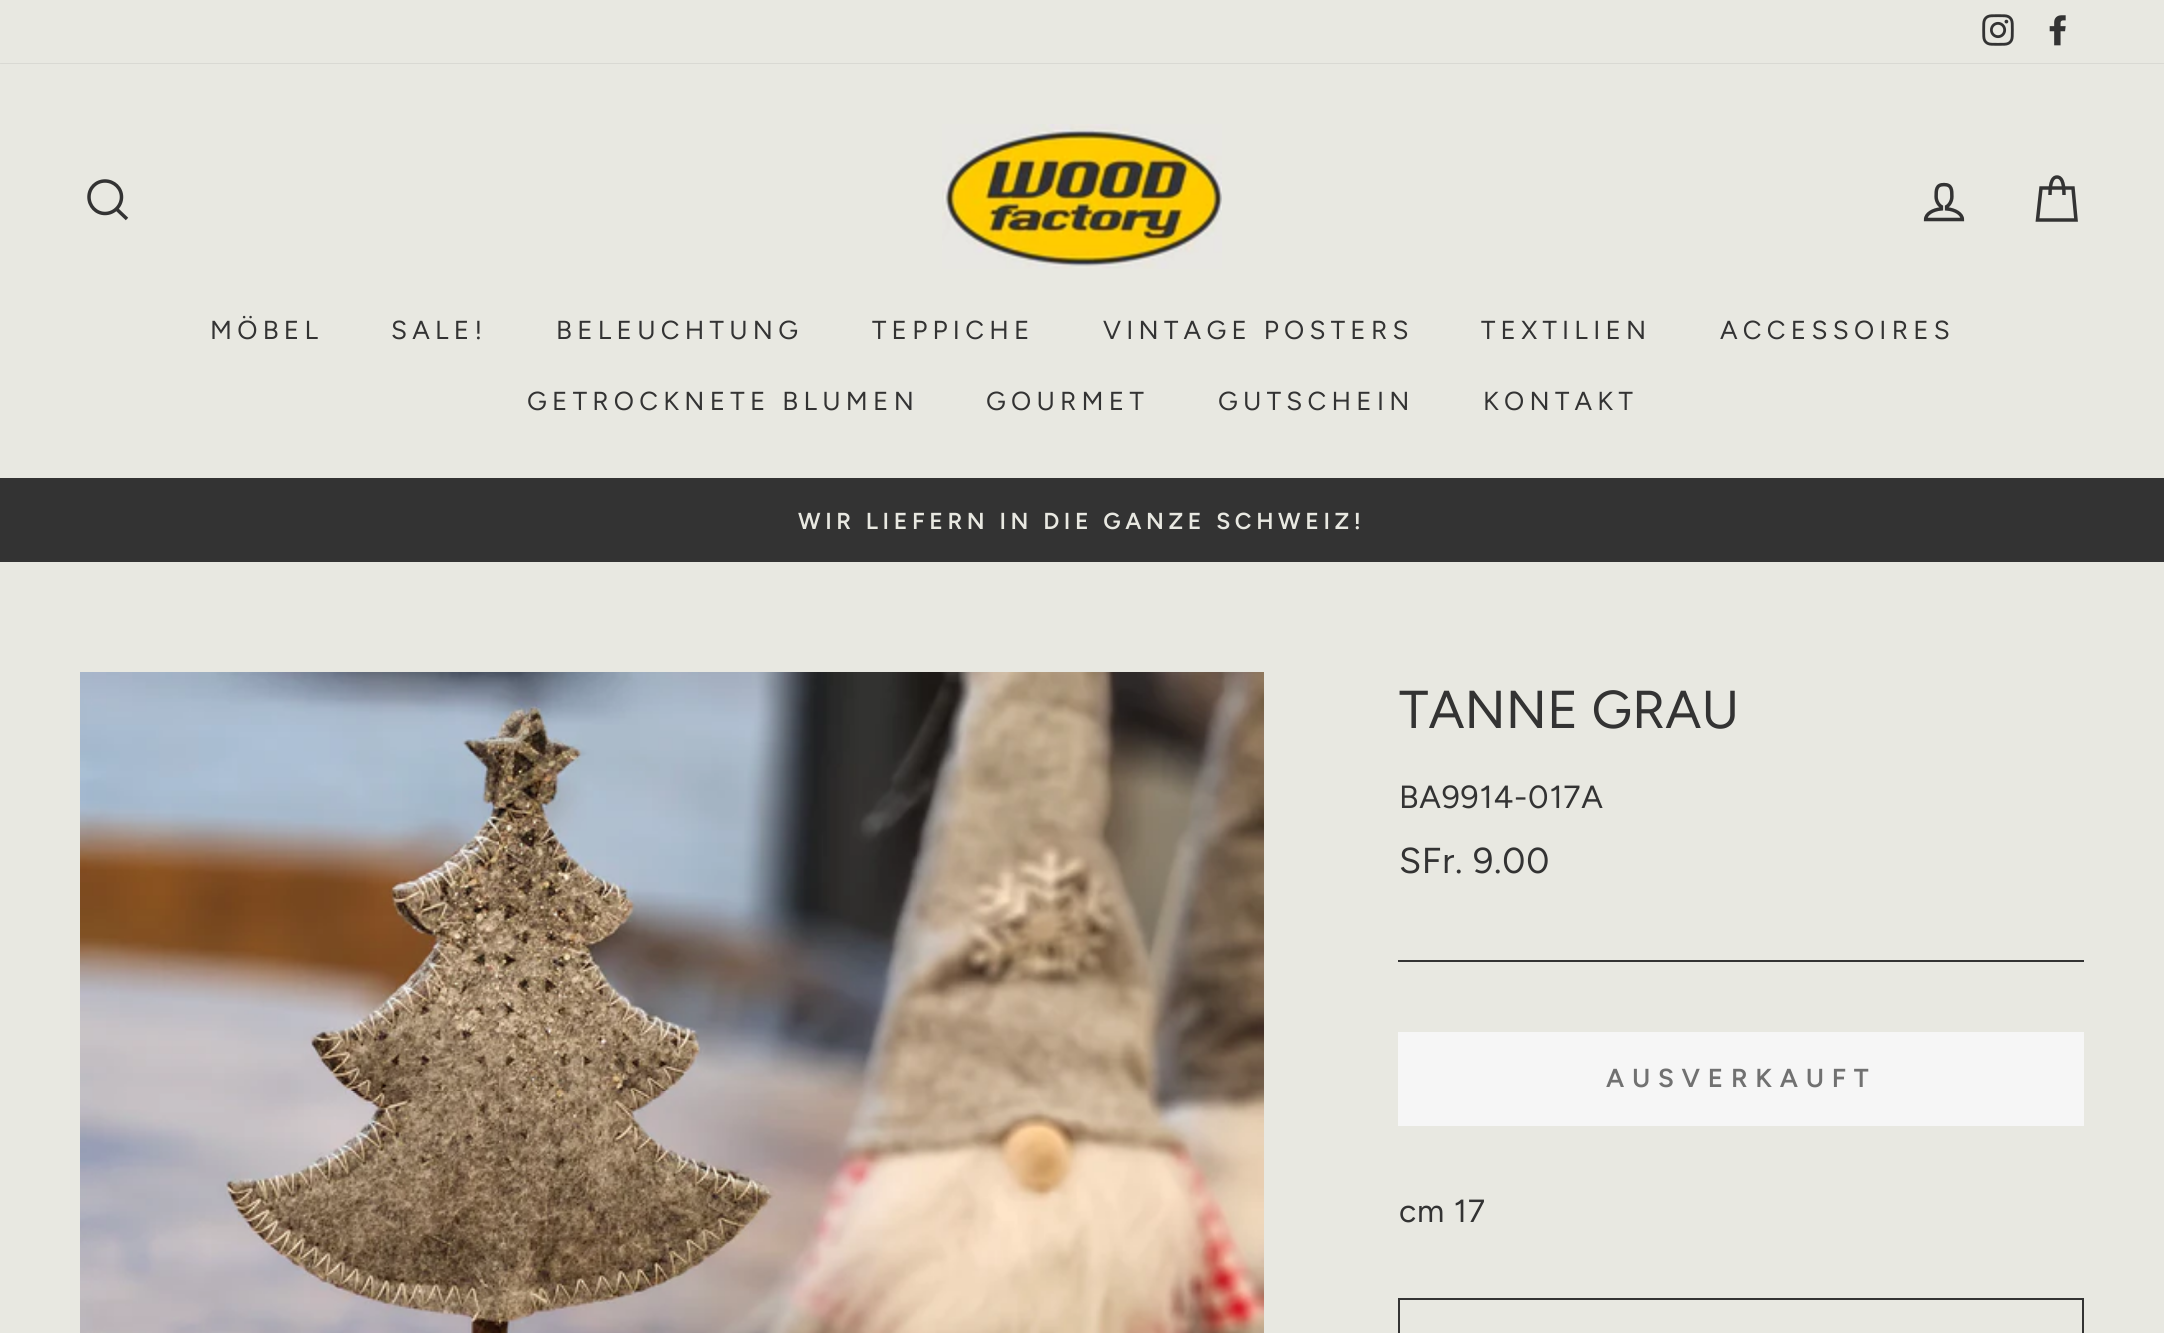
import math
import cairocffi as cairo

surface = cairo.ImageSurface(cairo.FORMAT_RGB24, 2164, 1333)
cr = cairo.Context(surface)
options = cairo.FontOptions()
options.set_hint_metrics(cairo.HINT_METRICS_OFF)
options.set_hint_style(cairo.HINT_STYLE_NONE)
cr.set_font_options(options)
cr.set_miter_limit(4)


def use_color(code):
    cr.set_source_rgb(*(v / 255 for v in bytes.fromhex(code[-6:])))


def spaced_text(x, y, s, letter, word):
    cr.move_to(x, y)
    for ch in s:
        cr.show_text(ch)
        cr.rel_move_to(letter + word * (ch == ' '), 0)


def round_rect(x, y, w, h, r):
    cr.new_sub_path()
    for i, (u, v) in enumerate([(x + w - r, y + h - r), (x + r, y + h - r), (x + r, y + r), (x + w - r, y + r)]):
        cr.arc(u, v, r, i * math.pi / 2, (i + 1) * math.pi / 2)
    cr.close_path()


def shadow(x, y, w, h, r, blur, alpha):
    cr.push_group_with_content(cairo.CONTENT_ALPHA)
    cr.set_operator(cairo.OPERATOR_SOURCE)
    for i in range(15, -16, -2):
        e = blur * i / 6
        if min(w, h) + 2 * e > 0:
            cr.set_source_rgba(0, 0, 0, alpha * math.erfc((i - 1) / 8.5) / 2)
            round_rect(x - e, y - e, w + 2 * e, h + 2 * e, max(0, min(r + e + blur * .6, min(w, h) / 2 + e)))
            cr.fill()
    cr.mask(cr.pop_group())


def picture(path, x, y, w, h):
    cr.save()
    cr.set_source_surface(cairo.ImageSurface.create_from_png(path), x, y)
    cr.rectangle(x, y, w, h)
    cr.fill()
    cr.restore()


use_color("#e8e8e1")
cr.paint()
picture("img1.png", 1982, 14, 32, 32)
picture("img2.png", 2049, 15, 17, 31)
cr.save()
cr.rectangle(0, 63, 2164, 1)
cr.clip()
use_color("#000000")
shadow(0, 64, 2164, 414, 0, 1, 0.2)
cr.restore()
cr.new_path()
cr.move_to(121.5, 197)
cr.curve_to(121.5, 206, 114, 213.5, 105, 213.5)
cr.curve_to(96, 213.5, 89, 206, 89, 197)
cr.curve_to(89, 188, 96, 181, 105, 181)
cr.curve_to(114, 181, 121.5, 188, 121.5, 197)
cr.close_path()
cr.move_to(127, 219)
cr.line_to(116.5, 209)
use_color("#333333")
cr.set_line_width(3.5)
cr.stroke()
picture("img3.png", 942, 124, 280, 145)
picture("img4.png", 1923, 182, 42, 40)
cr.new_path()
cr.move_to(2050, 195)
cr.curve_to(2050, 181, 2053, 177, 2057, 177)
cr.curve_to(2061, 177, 2064, 181, 2064, 195)
cr.move_to(2041, 188)
cr.line_to(2073, 188)
cr.line_to(2076, 220)
cr.line_to(2037.5, 220)
cr.close_path()
cr.stroke()
cr.select_font_face("Figtree")
cr.set_font_size(26)
spaced_text(210, 339, "MÖBEL", 5.25, 0)
spaced_text(391, 339, "SALE!", 5.25, 0)
spaced_text(556, 339, "BELEUCHTUNG", 5.25, 0)
spaced_text(872, 339, "TEPPICHE", 5.25, 0)
spaced_text(1103, 339, "VINTAGE POSTERS", 5.25, 0)
spaced_text(1481, 339, "TEXTILIEN", 5.25, 0)
spaced_text(1720, 339, "ACCESSOIRES", 5.25, 0)
spaced_text(527, 410, "GETROCKNETE BLUMEN", 5.25, 0)
spaced_text(986, 410, "GOURMET", 5.25, 0)
spaced_text(1218, 410, "GUTSCHEIN", 5.25, 0)
spaced_text(1483, 410, "KONTAKT", 5.25, 0)
cr.rectangle(0, 478, 2164, 84)
cr.fill()
cr.select_font_face("Figtree SemiBold")
cr.set_font_size(23.1)
use_color("#e8e8e1")
spaced_text(798, 529, "WIR LIEFERN IN DIE GANZE SCHWEIZ!", 4.6, 0)
picture("img5.png", 80, 672, 1184, 661)
cr.select_font_face("Figtree")
cr.set_font_size(53.25)
use_color("#333333")
cr.move_to(1399, 728)
cr.show_text("TANNE GRAU")
cr.set_font_size(32)
spaced_text(1399, 808, "BA9914-017A", 0.75, 0)
cr.set_font_size(36)
spaced_text(1399, 873, "SFr. 9.00", 0.75, 0)
cr.rectangle(1398, 960, 686, 2)
cr.fill()
use_color("#f6f6f6")
cr.rectangle(1398, 1032, 686, 94)
cr.fill()
cr.select_font_face("Figtree SemiBold")
cr.set_font_size(26)
use_color("#717171")
spaced_text(1606, 1087, "AUSVERKAUFT", 7.75, 0)
cr.select_font_face("Figtree")
cr.set_font_size(32)
use_color("#333333")
spaced_text(1399, 1222, "cm 17", 0.75, 0)
cr.rectangle(1398, 1298, 686, 2)
cr.fill()
cr.rectangle(2082, 1298, 2, 35)
cr.fill()
cr.rectangle(1398, 1298, 2, 35)
cr.fill()
surface.write_to_png("result.png")
